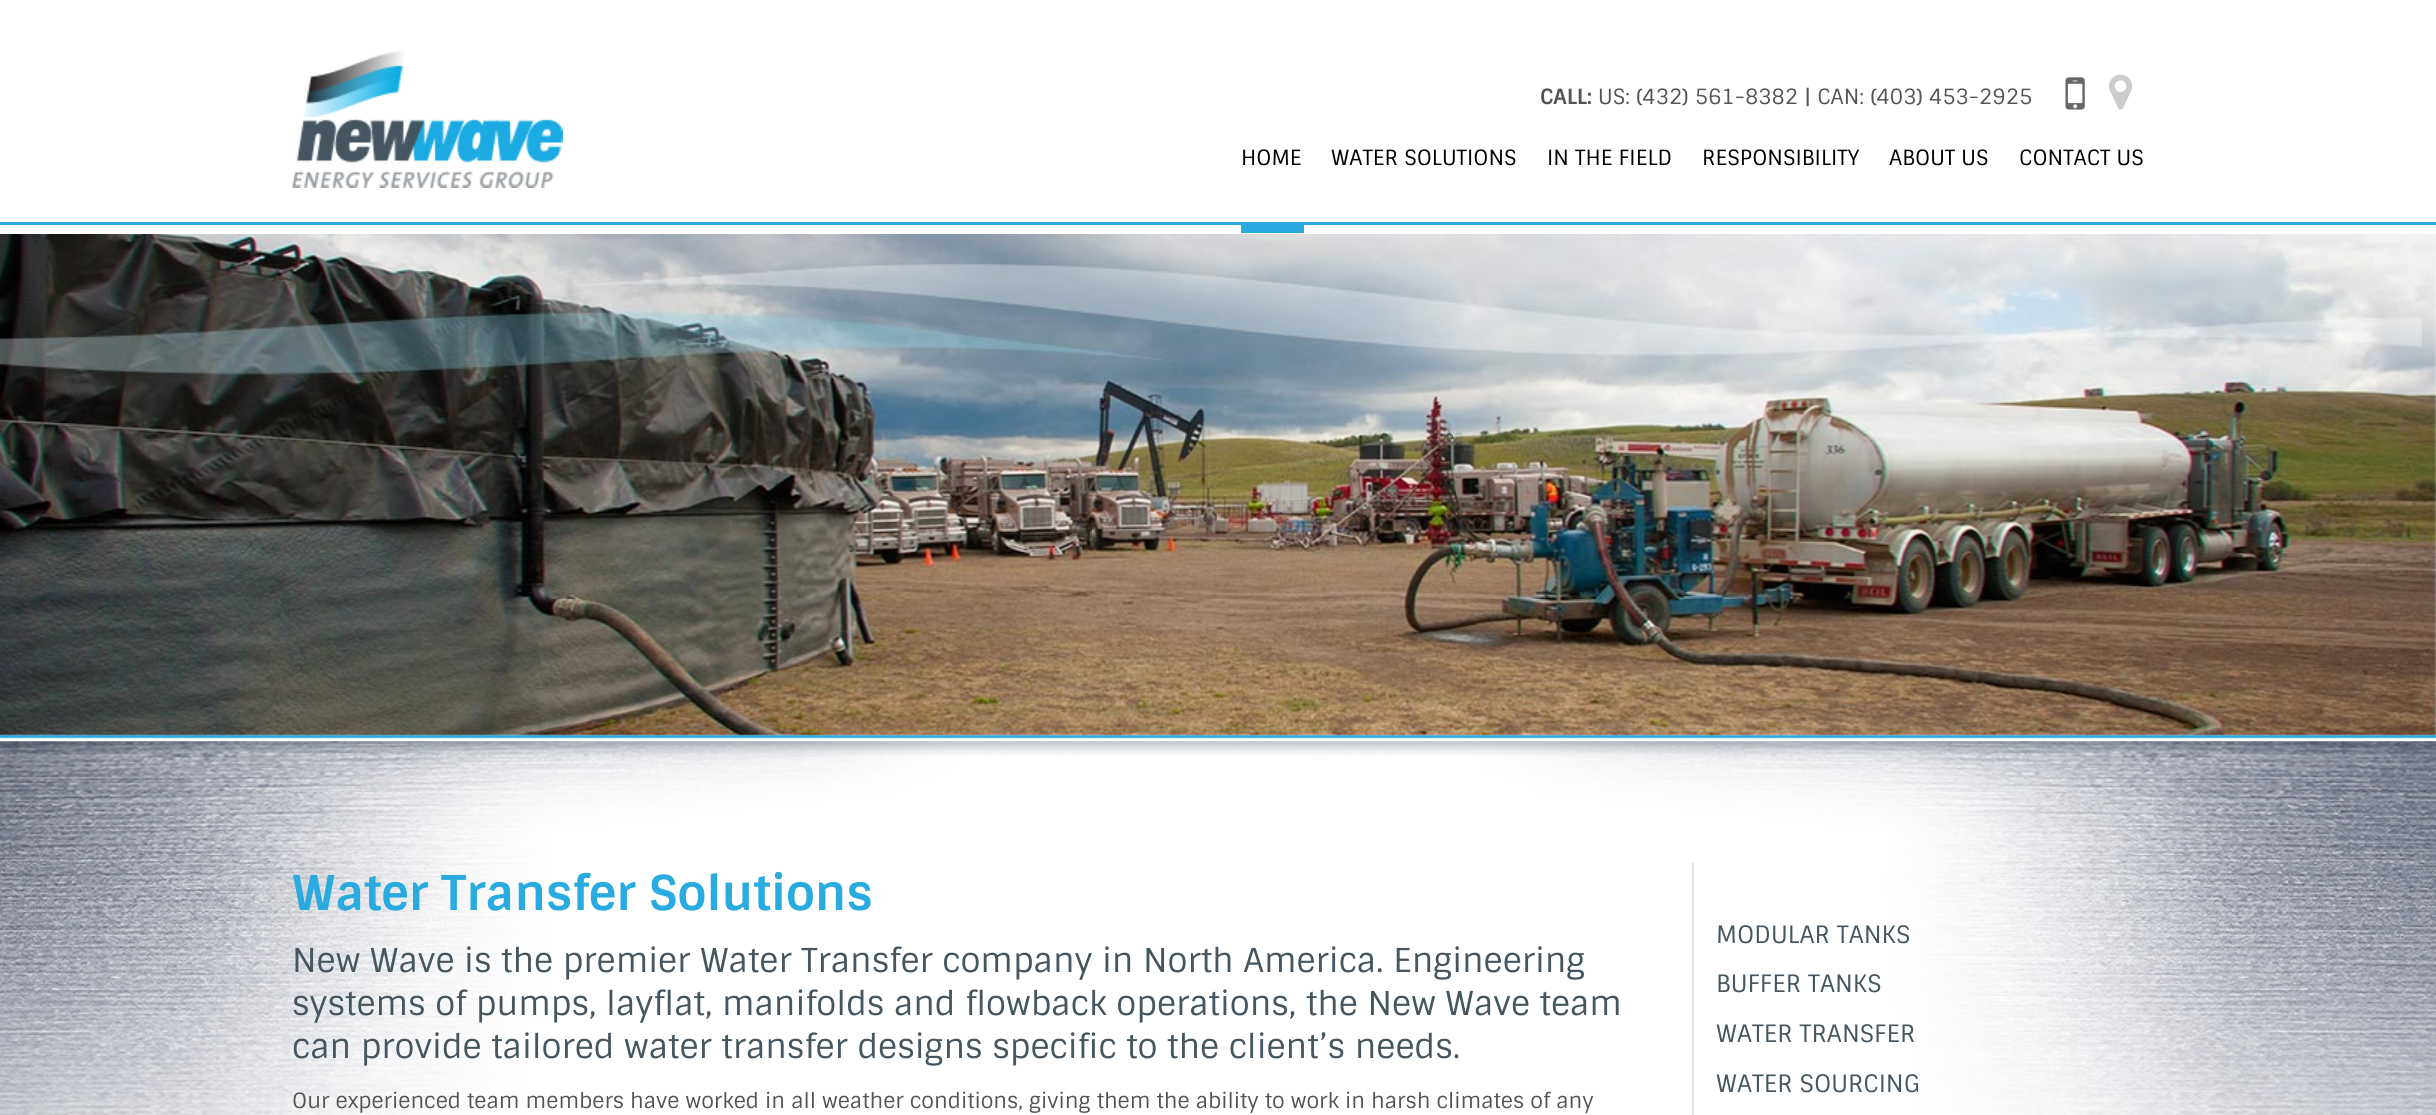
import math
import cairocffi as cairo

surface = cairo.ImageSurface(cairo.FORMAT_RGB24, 2436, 1115)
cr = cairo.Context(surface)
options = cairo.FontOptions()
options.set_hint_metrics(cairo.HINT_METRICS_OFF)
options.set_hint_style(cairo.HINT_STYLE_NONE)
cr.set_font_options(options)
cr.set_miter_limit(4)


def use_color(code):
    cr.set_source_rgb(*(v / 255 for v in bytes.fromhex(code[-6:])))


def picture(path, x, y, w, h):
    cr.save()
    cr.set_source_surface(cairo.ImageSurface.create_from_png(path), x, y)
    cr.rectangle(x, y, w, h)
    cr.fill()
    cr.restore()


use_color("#ffffff")
cr.paint()
use_color("#29abdf")
cr.rectangle(0, 222, 2436, 3)
cr.fill()
picture("img1.png", 292, 51, 271, 137)
cr.select_font_face("Sintony", cairo.FONT_SLANT_NORMAL, cairo.FONT_WEIGHT_BOLD)
cr.set_font_size(21)
use_color("#565353")
cr.move_to(1540, 104)
cr.show_text("CALL:")
cr.select_font_face("Sintony")
cr.move_to(1598, 104)
cr.show_text("US: (432) 561-8382 | CAN: (403) 453-2925")
picture("img2.png", 2065, 77, 20, 33)
picture("img3.png", 2109, 74, 24, 36)
use_color("#000000")
cr.move_to(1241, 165)
cr.show_text("HOME")
cr.move_to(1331, 165)
cr.show_text("WATER SOLUTIONS")
cr.move_to(1547, 165)
cr.show_text("IN THE FIELD")
cr.move_to(1702, 165)
cr.show_text("RESPONSIBILITY")
cr.move_to(1889, 165)
cr.show_text("ABOUT US")
cr.move_to(2019, 165)
cr.show_text("CONTACT US")
use_color("#29abdf")
cr.rectangle(1241, 225, 63, 8)
cr.fill()
picture("img6.png", 0, 735, 2436, 6)
picture("img4.png", 0, 234, 2436, 502)
picture("img5.png", 0, 741, 2436, 374)
cr.select_font_face("Sintony", cairo.FONT_SLANT_NORMAL, cairo.FONT_WEIGHT_BOLD)
cr.set_font_size(48)
cr.move_to(292, 910)
cr.show_text("Water Transfer Solutions")
cr.select_font_face("Sintony")
cr.set_font_size(33)
use_color("#465660")
cr.move_to(292, 972)
cr.show_text("New Wave is the premier Water Transfer company in North America. Engineering")
cr.move_to(292, 1015)
cr.show_text("systems of pumps, layflat, manifolds and flowback operations, the New Wave team")
cr.move_to(292, 1058)
cr.show_text("can provide tailored water transfer designs specific to the client’s needs.")
cr.set_font_size(21)
use_color("#565353")
cr.move_to(292, 1108)
cr.show_text("Our experienced team members have worked in all weather conditions, giving them the ability to work in harsh climates of any")
use_color("#e0e0e0")
cr.rectangle(1692, 863, 2, 252)
cr.fill()
cr.set_font_size(24)
use_color("#465660")
cr.move_to(1716, 943)
cr.show_text("MODULAR TANKS")
cr.move_to(1716, 992)
cr.show_text("BUFFER TANKS")
cr.move_to(1716, 1042)
cr.show_text("WATER TRANSFER")
cr.move_to(1716, 1092)
cr.show_text("WATER SOURCING")
surface.write_to_png("result.png")
